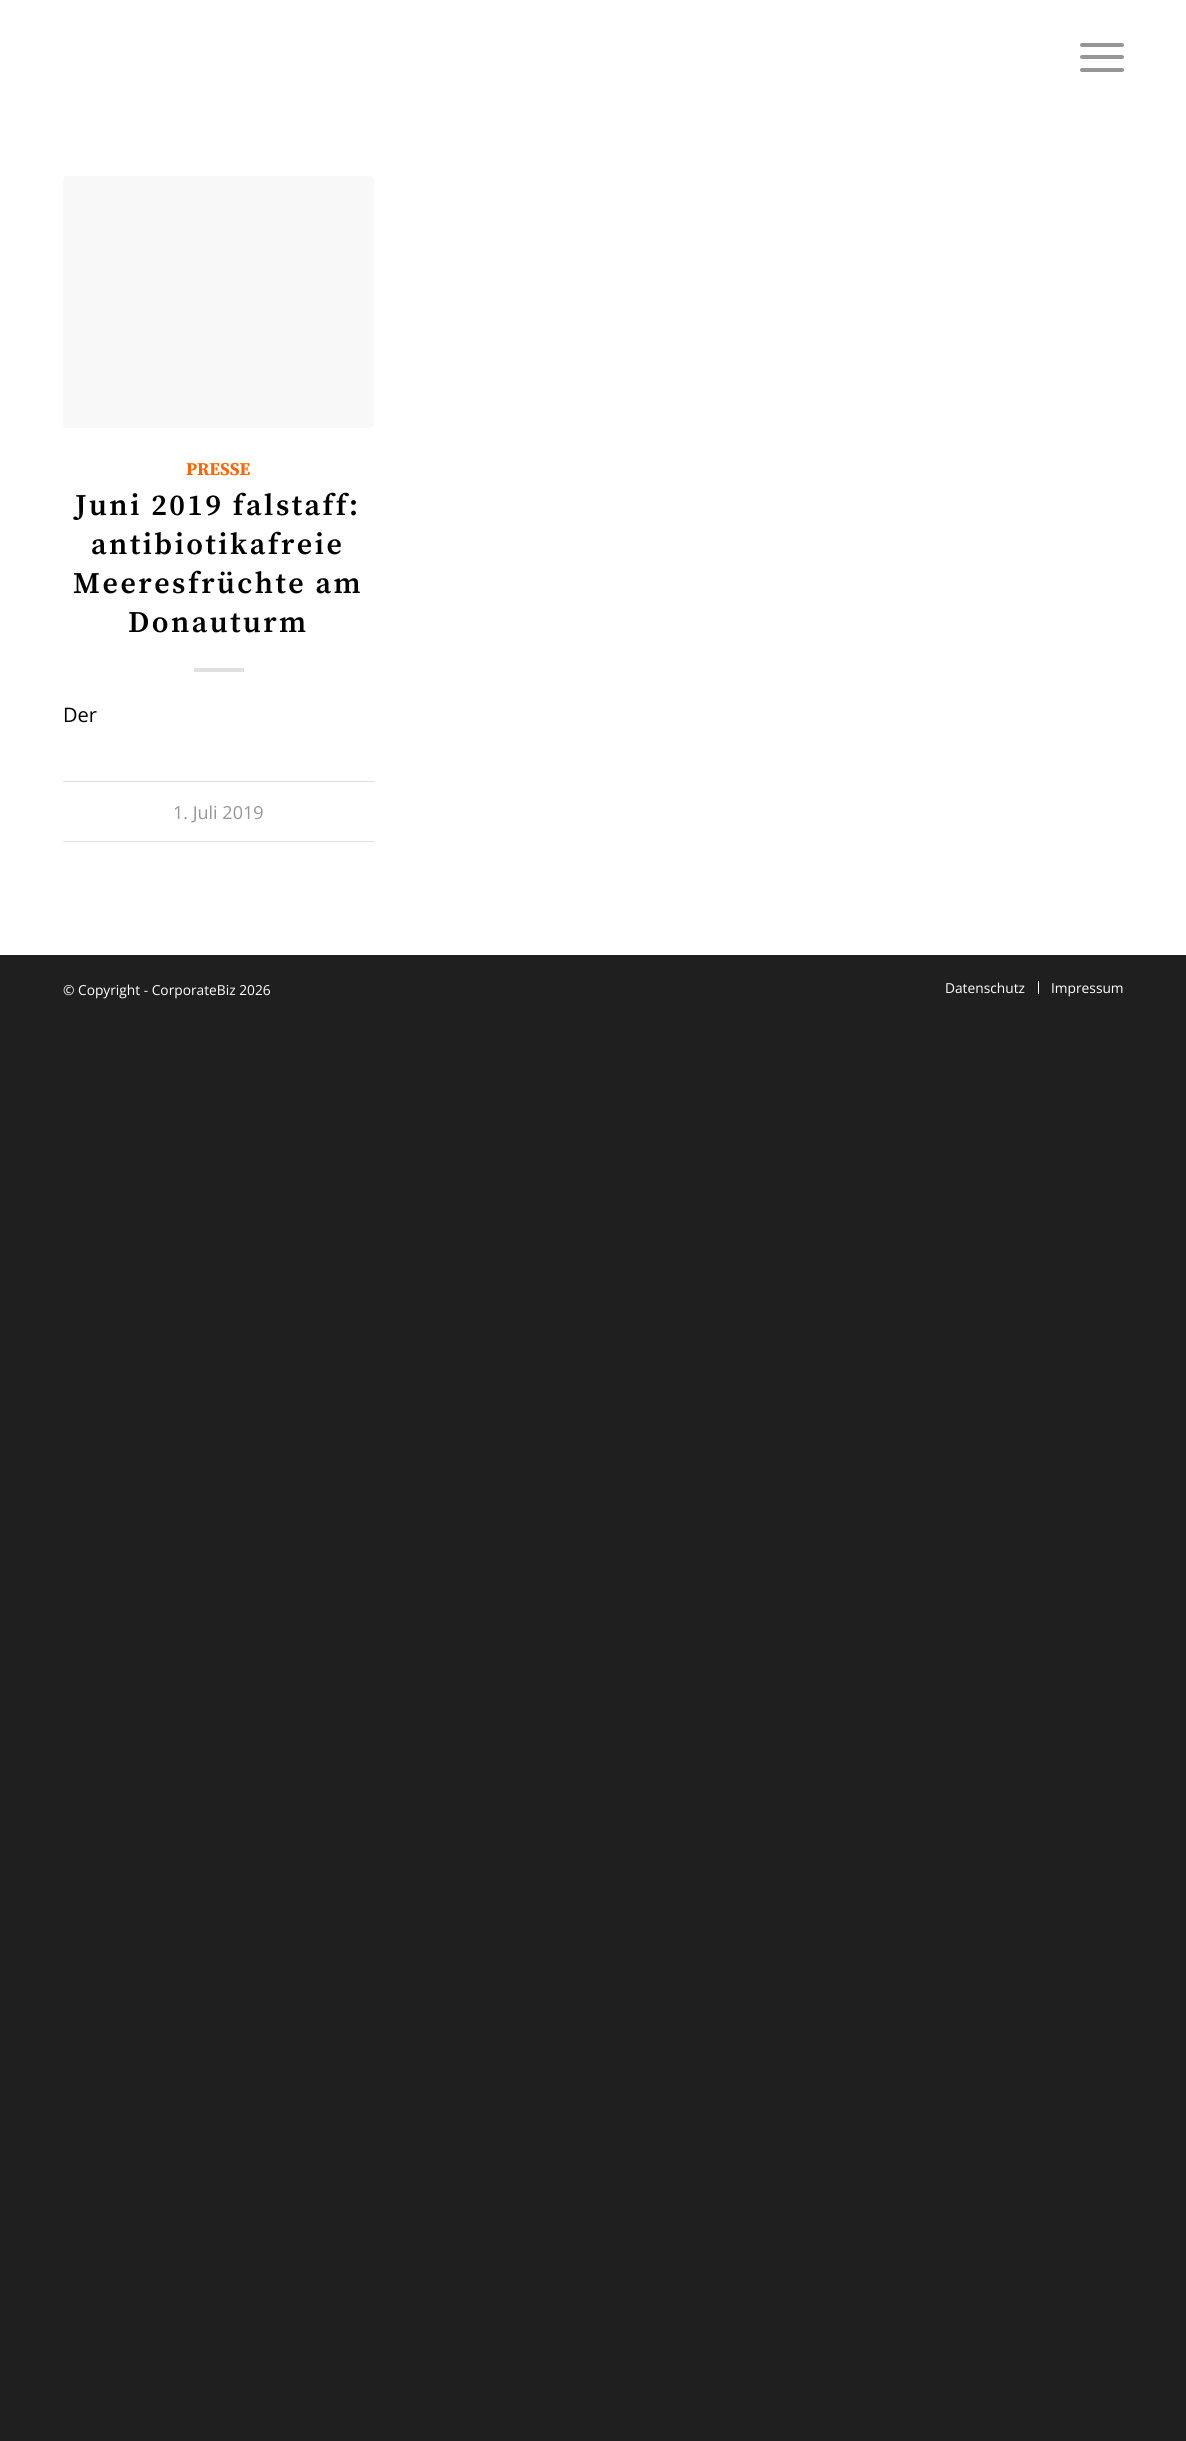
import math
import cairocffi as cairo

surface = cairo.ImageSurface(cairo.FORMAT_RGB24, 1186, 2441)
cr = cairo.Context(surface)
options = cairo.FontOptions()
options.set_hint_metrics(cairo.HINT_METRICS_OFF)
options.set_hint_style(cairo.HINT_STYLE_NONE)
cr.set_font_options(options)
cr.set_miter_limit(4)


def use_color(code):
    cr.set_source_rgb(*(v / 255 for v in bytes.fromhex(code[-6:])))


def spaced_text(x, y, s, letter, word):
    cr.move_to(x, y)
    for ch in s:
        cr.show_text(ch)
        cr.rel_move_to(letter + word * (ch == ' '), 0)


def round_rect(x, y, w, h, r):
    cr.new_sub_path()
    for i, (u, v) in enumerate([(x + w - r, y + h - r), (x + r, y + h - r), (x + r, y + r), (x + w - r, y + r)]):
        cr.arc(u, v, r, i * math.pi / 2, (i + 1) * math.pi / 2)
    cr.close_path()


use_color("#1f1f1f")
cr.paint()
use_color("#ffffff")
cr.rectangle(0, 0, 1186, 955)
cr.fill()
use_color("#969696")
round_rect(1080, 55, 44, 4, 2)
cr.fill()
round_rect(1080, 43, 44, 4, 2)
cr.fill()
round_rect(1080, 68, 44, 4, 2)
cr.fill()
use_color("#f8f8f8")
round_rect(63, 176, 311, 252, 4)
cr.fill()
cr.select_font_face("Source Serif Pro", cairo.FONT_SLANT_NORMAL, cairo.FONT_WEIGHT_BOLD)
cr.set_font_size(18)
use_color("#ff6600")
cr.move_to(186, 475)
cr.show_text("PRESSE")
cr.select_font_face("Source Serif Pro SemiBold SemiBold")
cr.set_font_size(30)
use_color("#000000")
spaced_text(75, 515, "Juni 2019 falstaff:", 2.5, 0)
spaced_text(91, 554, "antibiotikafreie", 2.5, 0)
spaced_text(73, 593, "Meeresfrüchte am", 2.5, 0)
spaced_text(128, 632, "Donauturm", 2.5, 0)
use_color("#e0e0e0")
cr.rectangle(194, 668, 50, 4)
cr.fill()
cr.select_font_face("Open Sans")
cr.set_font_size(20)
use_color("#000000")
cr.move_to(63, 722)
cr.show_text("Der")
use_color("#e0e0e0")
cr.rectangle(63, 781, 311, 1)
cr.fill()
cr.rectangle(63, 841, 311, 1)
cr.fill()
cr.set_font_size(18)
use_color("#969696")
cr.move_to(173, 819)
cr.show_text("1. Juli 2019")
cr.set_font_size(13.75)
use_color("#ffffff")
cr.move_to(63, 995)
cr.show_text("© Copyright - CorporateBiz 2026")
cr.move_to(945, 993)
cr.show_text("Datenschutz")
cr.rectangle(1038, 981, 1, 13)
cr.fill()
cr.move_to(1051, 993)
cr.show_text("Impressum")
surface.write_to_png("result.png")
